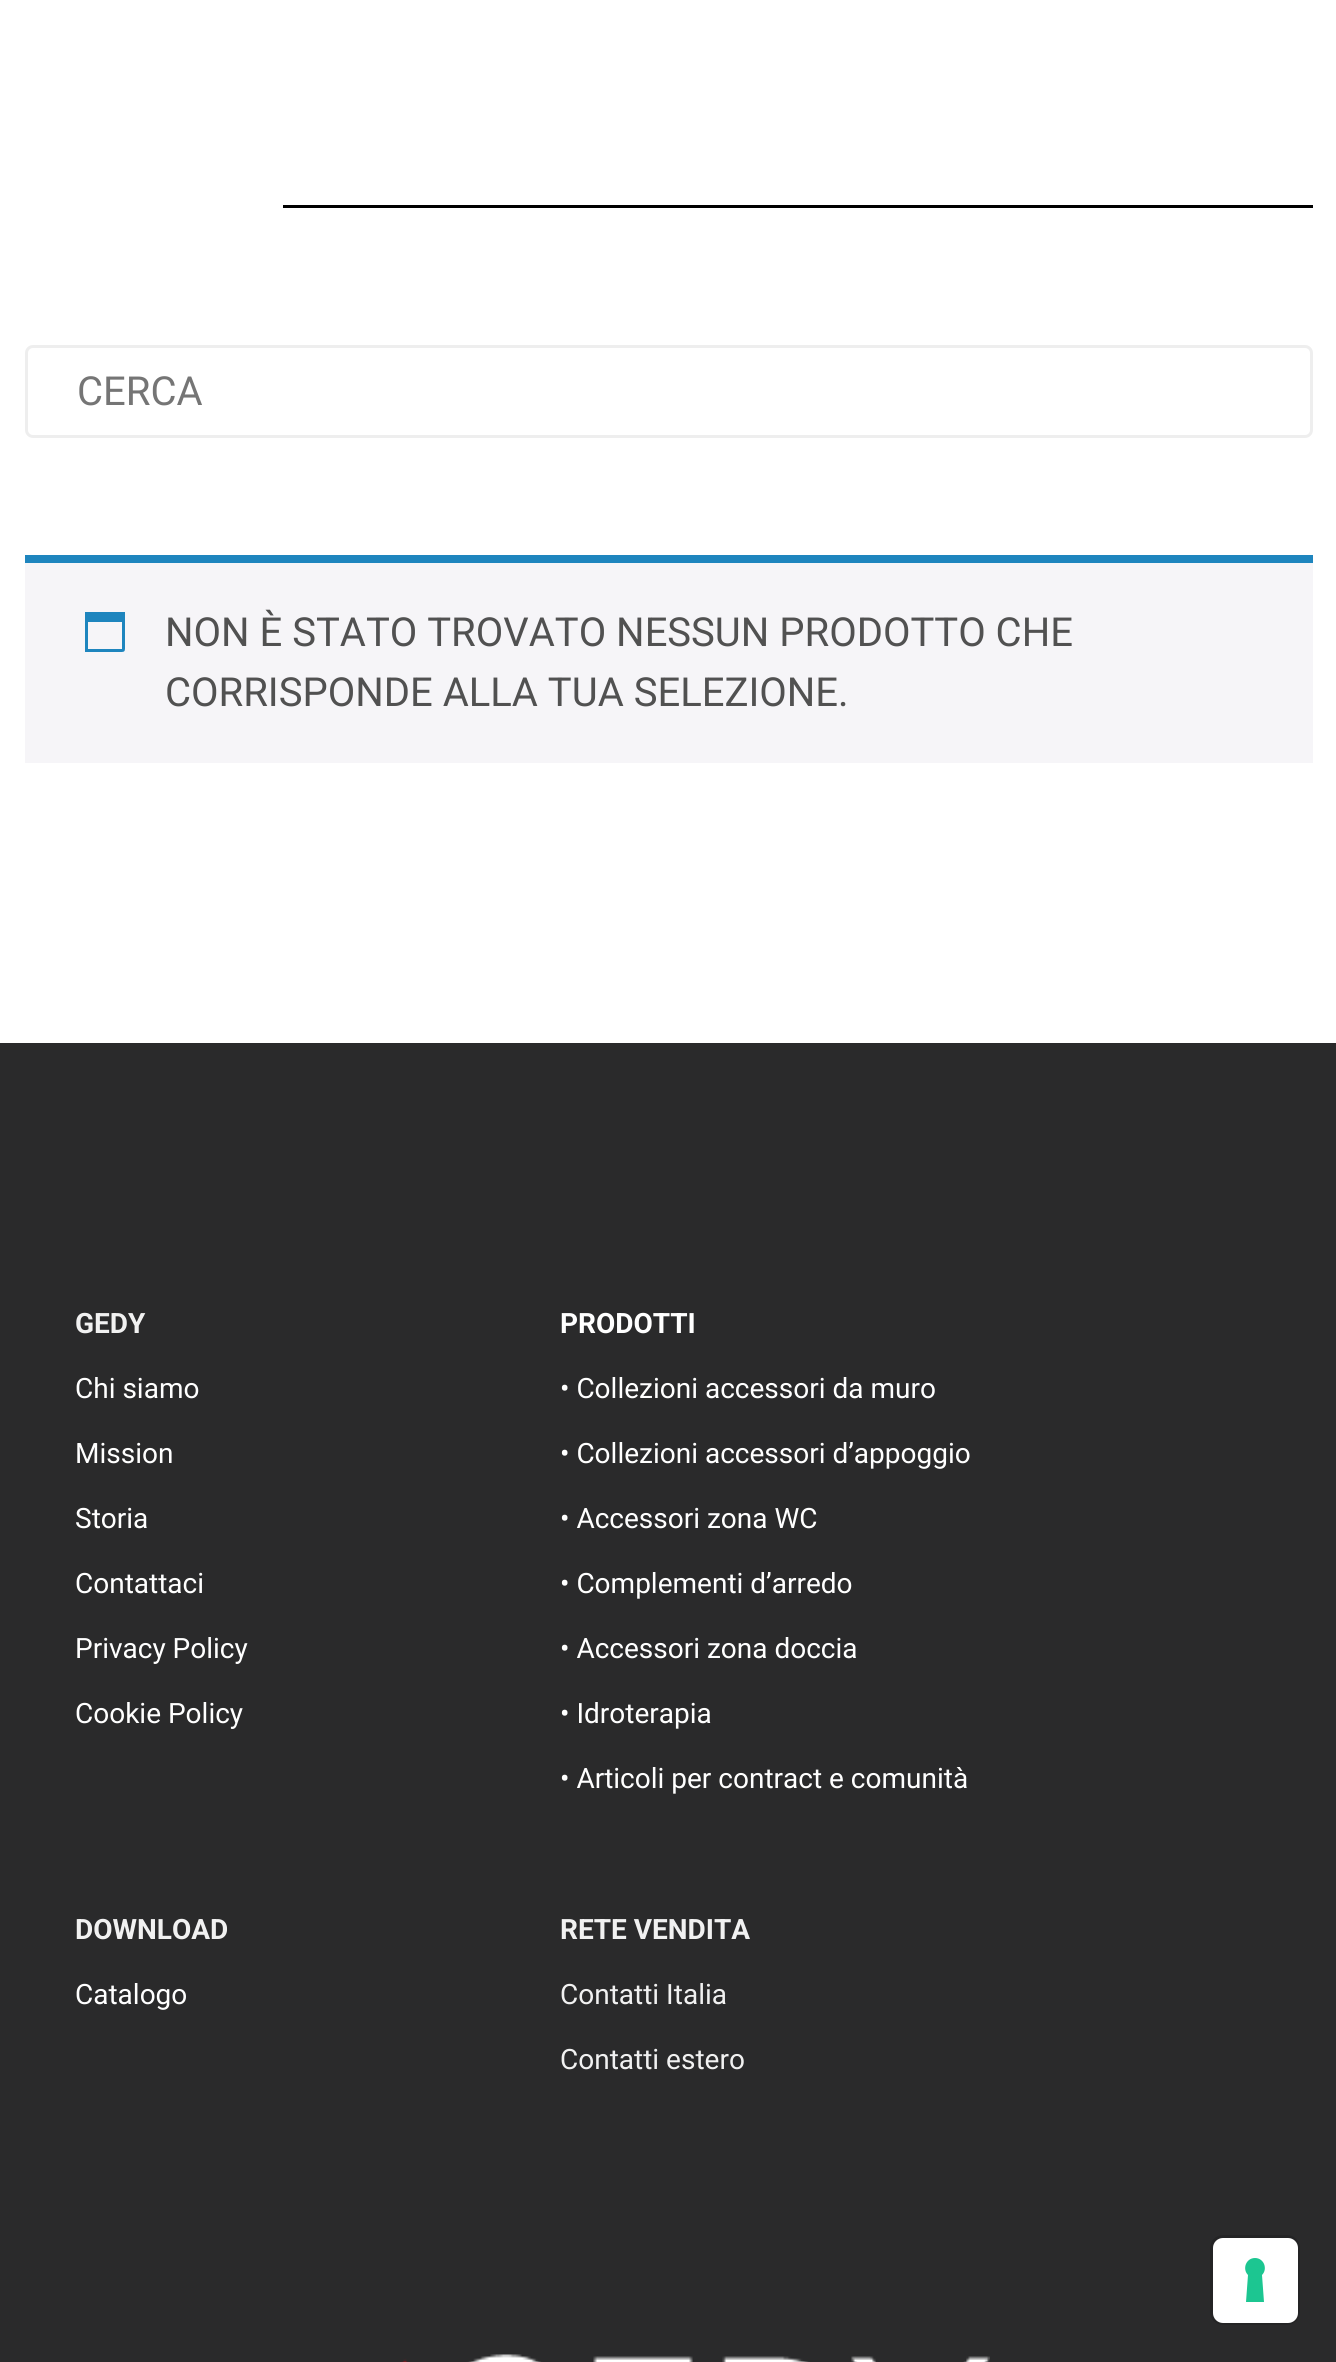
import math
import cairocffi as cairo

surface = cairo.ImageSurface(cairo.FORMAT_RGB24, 1336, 2362)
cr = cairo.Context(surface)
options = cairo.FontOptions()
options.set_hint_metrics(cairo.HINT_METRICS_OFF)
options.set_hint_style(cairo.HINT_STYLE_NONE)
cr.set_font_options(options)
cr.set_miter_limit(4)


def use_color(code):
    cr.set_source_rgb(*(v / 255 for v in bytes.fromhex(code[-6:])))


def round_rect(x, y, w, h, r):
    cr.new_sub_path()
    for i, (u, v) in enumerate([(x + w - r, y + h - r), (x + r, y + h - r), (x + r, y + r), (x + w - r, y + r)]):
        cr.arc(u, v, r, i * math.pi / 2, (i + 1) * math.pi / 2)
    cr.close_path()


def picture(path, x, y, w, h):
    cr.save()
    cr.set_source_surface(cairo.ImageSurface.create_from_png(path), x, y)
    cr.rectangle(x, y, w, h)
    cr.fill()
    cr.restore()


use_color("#ffffff")
cr.paint()
use_color("#000000")
cr.rectangle(283, 205, 1030, 3)
cr.fill()
round_rect(26.5, 346.5, 1285, 90, 6.5)
use_color("#eeeeee")
cr.set_line_width(3)
cr.stroke()
cr.select_font_face("Roboto")
cr.set_font_size(40)
use_color("#757575")
cr.move_to(77, 405)
cr.show_text("CERCA")
use_color("#f6f5f8")
cr.rectangle(25, 563, 1288, 200)
cr.fill()
use_color("#1e85be")
cr.rectangle(25, 555, 1288, 8)
cr.fill()
cr.new_path()
cr.move_to(122, 622)
cr.line_to(88, 622)
cr.line_to(88, 649)
cr.line_to(122, 649)
cr.close_path()
cr.move_to(125, 612)
cr.line_to(125, 643)
cr.curve_to(125, 653, 126, 652, 116, 652)
cr.line_to(85, 652)
cr.line_to(85, 612)
cr.close_path()
cr.fill()
use_color("#515151")
cr.move_to(165, 646)
cr.show_text("NON È STATO TROVATO NESSUN PRODOTTO CHE")
cr.move_to(165, 706)
cr.show_text("CORRISPONDE ALLA TUA SELEZIONE.")
use_color("#2a2a2b")
cr.rectangle(0, 1043, 1336, 1319)
cr.fill()
cr.select_font_face("Roboto", cairo.FONT_SLANT_NORMAL, cairo.FONT_WEIGHT_BOLD)
cr.set_font_size(28)
use_color("#f1f1f1")
cr.move_to(75, 1333)
cr.show_text("GEDY")
cr.select_font_face("Roboto")
use_color("#ffffff")
cr.move_to(75, 1398)
cr.show_text("Chi siamo")
cr.move_to(75, 1463)
cr.show_text("Mission")
cr.move_to(75, 1528)
cr.show_text("Storia")
cr.move_to(75, 1593)
cr.show_text("Contattaci")
cr.move_to(75, 1658)
cr.show_text("Privacy Policy")
cr.move_to(75, 1723)
cr.show_text("Cookie Policy")
cr.select_font_face("Roboto", cairo.FONT_SLANT_NORMAL, cairo.FONT_WEIGHT_BOLD)
cr.move_to(560, 1333)
cr.show_text("PRODOTTI")
cr.select_font_face("Roboto")
cr.move_to(560, 1398)
cr.show_text("• Collezioni accessori da muro")
cr.move_to(560, 1463)
cr.show_text("• Collezioni accessori d’appoggio")
cr.move_to(560, 1528)
cr.show_text("• Accessori zona WC")
cr.move_to(560, 1593)
cr.show_text("• Complementi d’arredo")
cr.move_to(560, 1658)
cr.show_text("• Accessori zona doccia")
cr.move_to(560, 1723)
cr.show_text("• Idroterapia")
cr.move_to(560, 1788)
cr.show_text("• Articoli per contract e comunità")
cr.select_font_face("Roboto", cairo.FONT_SLANT_NORMAL, cairo.FONT_WEIGHT_BOLD)
use_color("#f1f1f1")
cr.move_to(75, 1939)
cr.show_text("DOWNLOAD")
cr.select_font_face("Roboto")
use_color("#ffffff")
cr.move_to(75, 2004)
cr.show_text("Catalogo")
cr.select_font_face("Roboto", cairo.FONT_SLANT_NORMAL, cairo.FONT_WEIGHT_BOLD)
use_color("#f1f1f1")
cr.move_to(560, 1939)
cr.show_text("RETE VENDITA")
cr.select_font_face("Roboto")
cr.move_to(560, 2004)
cr.show_text("Contatti Italia")
cr.move_to(560, 2069)
cr.show_text("Contatti estero")
picture("img1.png", 401, 2354, 589, 8)
round_rect(1211.5, 2236.5, 87, 87, 11.5)
use_color("#242425")
cr.stroke()
use_color("#ffffff")
round_rect(1213, 2238, 85, 85, 10)
cr.fill()
use_color("#1cc691")
cr.set_fill_rule(cairo.FILL_RULE_EVEN_ODD)
cr.new_path()
cr.move_to(1255, 2258)
cr.curve_to(1264, 2258, 1268, 2269, 1262, 2275)
cr.line_to(1264, 2302)
cr.line_to(1246, 2302)
cr.line_to(1248, 2275)
cr.curve_to(1242, 2269, 1246, 2258, 1255, 2258)
cr.close_path()
cr.fill()
surface.write_to_png("result.png")
